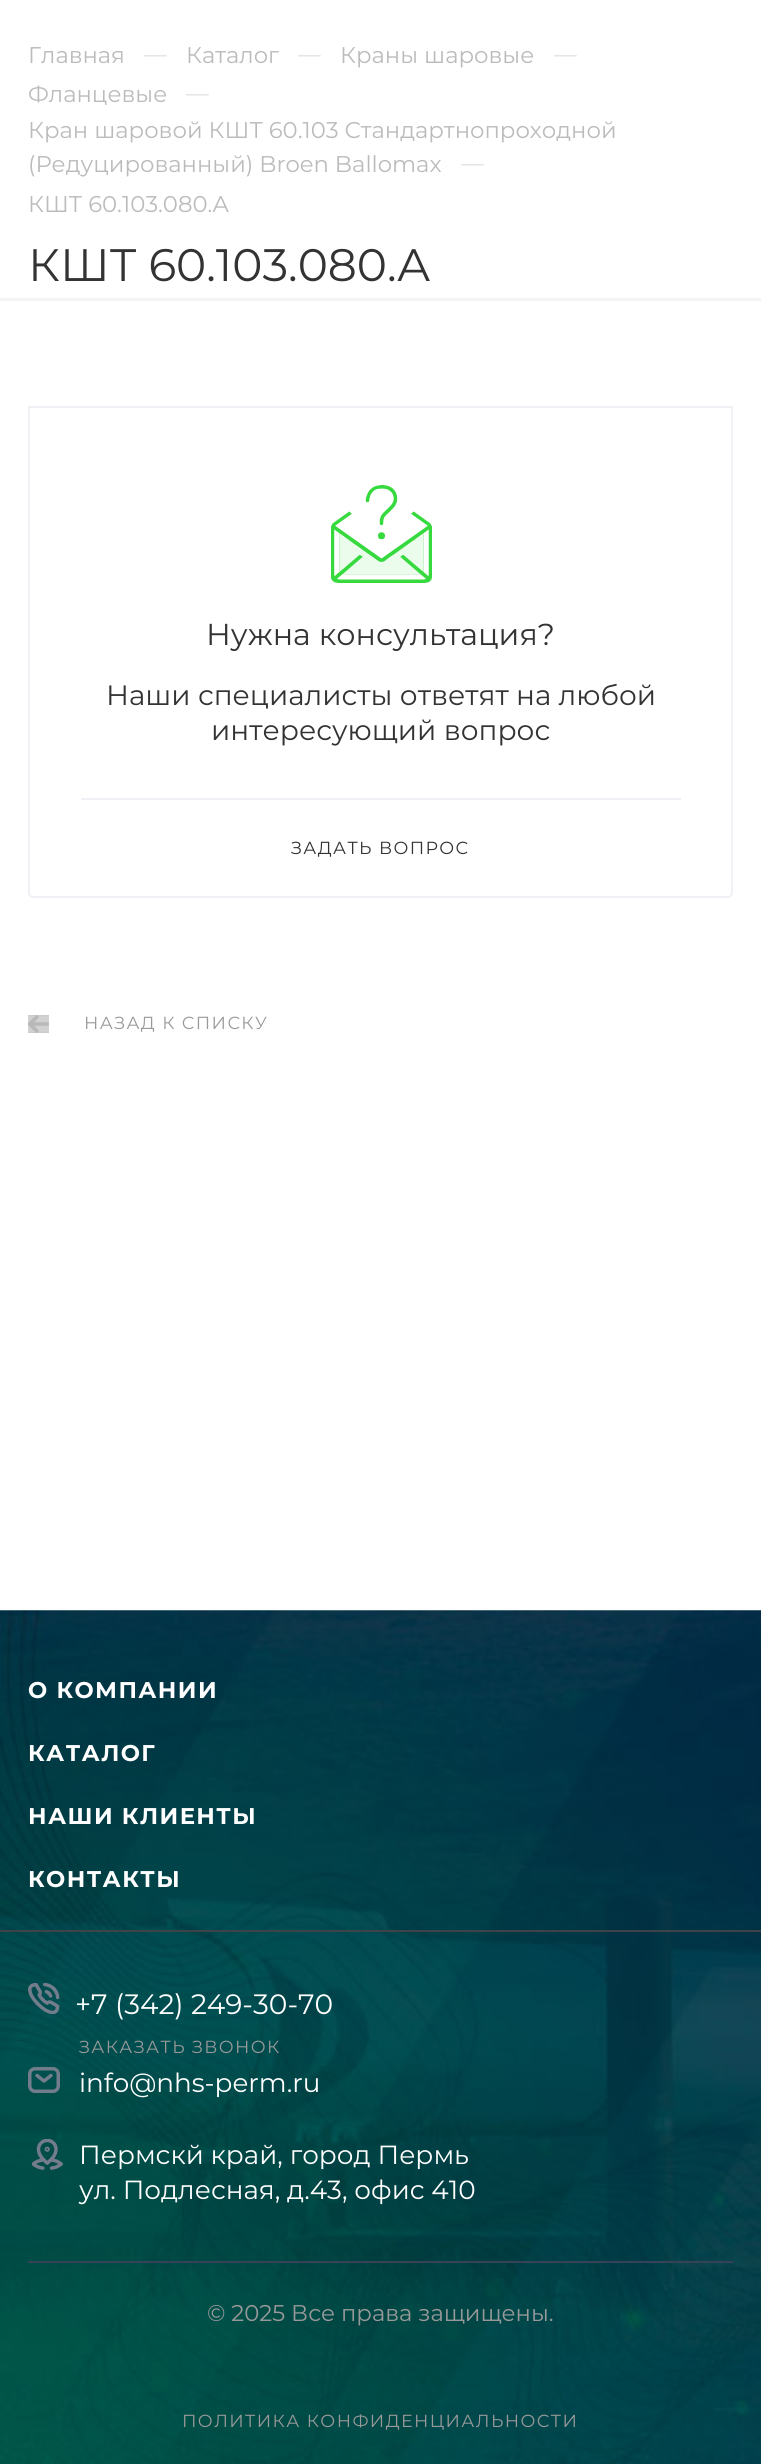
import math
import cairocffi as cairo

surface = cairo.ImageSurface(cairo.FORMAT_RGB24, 761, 2464)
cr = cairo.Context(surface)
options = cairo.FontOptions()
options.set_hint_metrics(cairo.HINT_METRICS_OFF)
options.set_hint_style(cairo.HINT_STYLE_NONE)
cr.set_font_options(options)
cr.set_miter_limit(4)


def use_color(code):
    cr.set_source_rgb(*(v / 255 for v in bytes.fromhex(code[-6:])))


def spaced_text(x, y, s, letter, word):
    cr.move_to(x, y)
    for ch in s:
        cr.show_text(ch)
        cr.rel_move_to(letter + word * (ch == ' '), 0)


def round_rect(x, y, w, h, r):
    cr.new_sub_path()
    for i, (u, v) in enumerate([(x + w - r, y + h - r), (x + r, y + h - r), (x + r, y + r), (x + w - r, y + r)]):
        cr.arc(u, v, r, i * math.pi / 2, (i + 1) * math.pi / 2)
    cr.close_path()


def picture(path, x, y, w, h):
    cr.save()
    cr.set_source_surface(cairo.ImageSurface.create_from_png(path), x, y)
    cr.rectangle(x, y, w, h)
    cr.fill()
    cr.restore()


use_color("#ffffff")
cr.paint()
cr.select_font_face("Montserrat")
cr.set_font_size(22.75)
use_color("#bbbbbb")
cr.move_to(28, 63)
cr.show_text("Главная")
use_color("#dddddd")
cr.move_to(144, 62)
cr.show_text("—")
use_color("#bbbbbb")
cr.move_to(186, 63)
cr.show_text("Каталог")
use_color("#dddddd")
cr.move_to(298, 62)
cr.show_text("—")
use_color("#bbbbbb")
cr.move_to(340, 63)
cr.show_text("Краны шаровые")
use_color("#dddddd")
cr.move_to(554, 62)
cr.show_text("—")
use_color("#bbbbbb")
cr.move_to(28, 102)
cr.show_text("Фланцевые")
use_color("#dddddd")
cr.move_to(186, 101)
cr.show_text("—")
use_color("#bbbbbb")
cr.move_to(28, 138)
cr.show_text("Кран шаровой КШТ 60.103 Стандартнопроходной")
cr.move_to(28, 172)
cr.show_text("(Редуцированный) Broen Ballomax")
use_color("#dddddd")
cr.move_to(461, 171)
cr.show_text("—")
use_color("#bbbbbb")
cr.move_to(28, 212)
cr.show_text("КШТ 60.103.080.А")
cr.set_font_size(45.5)
use_color("#333333")
cr.move_to(28, 281)
cr.show_text("КШТ 60.103.080.А")
use_color("#f3f3f3")
cr.rectangle(0, 298, 761, 3)
cr.fill()
cr.new_path()
cr.move_to(29, 407)
cr.line_to(732, 407)
cr.line_to(732, 893)
cr.curve_to(732, 895, 730, 897, 728, 897)
cr.line_to(33, 897)
cr.curve_to(31, 897, 29, 895, 29, 893)
cr.close_path()
use_color("#eff1f5")
cr.stroke()
use_color("#36d93e")
cr.rectangle(331, 485, 101, 98)
cr.fill()
picture("img1.png", 331, 485, 101, 98)
cr.set_font_size(30.25)
use_color("#333333")
cr.move_to(206, 645)
cr.show_text("Нужна консультация?")
cr.set_font_size(28)
cr.move_to(106, 705)
cr.show_text("Наши специалисты ответят на любой")
cr.move_to(211, 740)
cr.show_text("интересующий вопрос")
use_color("#eff1f5")
cr.rectangle(81, 798, 600, 2)
cr.fill()
cr.set_font_size(17.5)
use_color("#333333")
spaced_text(291, 854, "ЗАДАТЬ ВОПРОС", 1.4, 0)
use_color("#b8b8b8")
cr.rectangle(28, 1015, 21, 18)
cr.fill()
picture("img2.png", 28, 1015, 21, 18)
use_color("#999999")
spaced_text(84, 1029, "НАЗАД К СПИСКУ", 1.4, 0)
picture("img3.png", 0, 1610, 761, 854)
cr.select_font_face("Montserrat", cairo.FONT_SLANT_NORMAL, cairo.FONT_WEIGHT_BOLD)
cr.set_font_size(22.75)
use_color("#ffffff")
spaced_text(28, 1698, "О КОМПАНИИ", 1.4, 0)
spaced_text(28, 1761, "КАТАЛОГ", 1.4, 0)
spaced_text(28, 1824, "НАШИ КЛИЕНТЫ", 1.4, 0)
spaced_text(28, 1887, "КОНТАКТЫ", 1.4, 0)
use_color("#3f4348")
cr.rectangle(0, 1930, 761, 2)
cr.fill()
picture("img4.png", 28, 1983, 32, 31)
cr.select_font_face("Montserrat")
cr.set_font_size(28)
use_color("#ffffff")
cr.move_to(75, 2014)
cr.show_text("+7 (342) 249-30-70")
cr.set_font_size(17.5)
use_color("#999999")
spaced_text(79, 2053, "ЗАКАЗАТЬ ЗВОНОК", 1.4, 0)
round_rect(29.75, 2068.75, 28.5, 22.5, 5.25)
use_color("#727c8b")
cr.set_line_width(3.5)
cr.stroke()
cr.new_path()
cr.move_to(37, 2075.5)
cr.line_to(44, 2081)
cr.line_to(51, 2075.5)
cr.set_line_cap(cairo.LINE_CAP_ROUND)
cr.set_line_join(cairo.LINE_JOIN_ROUND)
cr.stroke()
cr.set_font_size(26.25)
use_color("#ffffff")
cr.move_to(79, 2092)
cr.show_text("info@nhs-perm.ru")
picture("img5.png", 32, 2139, 31, 31)
cr.move_to(79, 2164)
cr.show_text("Пермскй край, город Пермь")
cr.move_to(79, 2199)
cr.show_text("ул. Подлесная, д.43, офис 410")
use_color("#344358")
cr.rectangle(28, 2261, 705, 2)
cr.fill()
cr.set_font_size(22.75)
use_color("#999999")
cr.move_to(207, 2321)
cr.show_text("© 2025 Все права защищены.")
cr.set_font_size(17.5)
spaced_text(182, 2427, "ПОЛИТИКА КОНФИДЕНЦИАЛЬНОСТИ", 1.4, 0)
surface.write_to_png("result.png")
